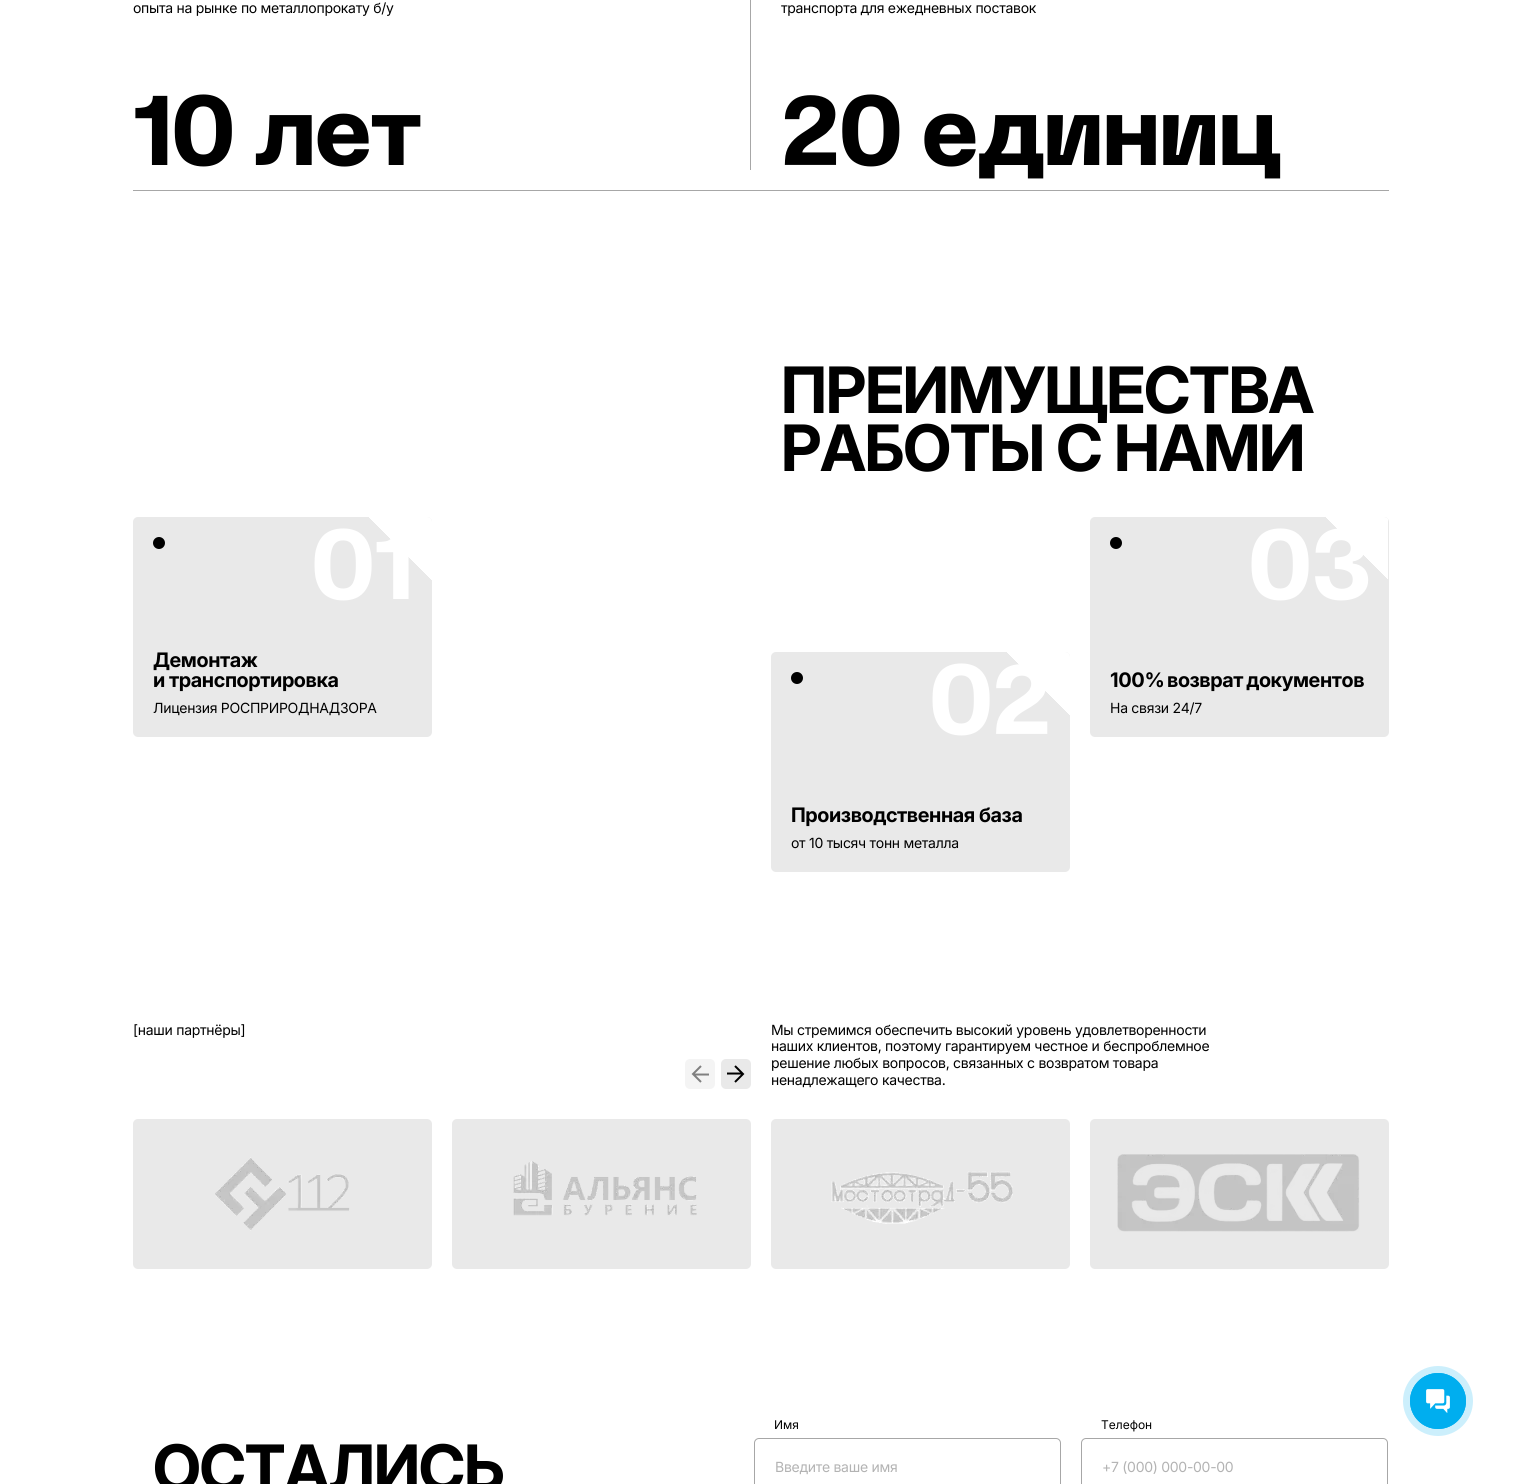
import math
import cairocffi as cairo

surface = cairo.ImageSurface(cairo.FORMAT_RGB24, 1521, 1484)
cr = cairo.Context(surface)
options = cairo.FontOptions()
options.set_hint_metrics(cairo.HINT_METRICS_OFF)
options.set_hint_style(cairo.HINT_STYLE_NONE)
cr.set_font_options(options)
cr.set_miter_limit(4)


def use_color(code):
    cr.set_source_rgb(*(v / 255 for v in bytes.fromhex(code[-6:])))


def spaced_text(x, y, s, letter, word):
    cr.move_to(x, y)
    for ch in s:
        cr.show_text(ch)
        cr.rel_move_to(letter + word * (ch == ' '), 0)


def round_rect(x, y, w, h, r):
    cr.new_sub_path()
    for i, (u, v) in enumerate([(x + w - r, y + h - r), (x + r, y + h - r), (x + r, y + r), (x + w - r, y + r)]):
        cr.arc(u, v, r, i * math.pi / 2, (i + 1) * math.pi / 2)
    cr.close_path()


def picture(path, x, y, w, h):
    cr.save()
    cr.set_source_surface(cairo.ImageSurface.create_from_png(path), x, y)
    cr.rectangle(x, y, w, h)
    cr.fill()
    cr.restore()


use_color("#ffffff")
cr.paint()
use_color("#a7a7a7")
cr.rectangle(133, 190, 1256, 1)
cr.fill()
cr.select_font_face("Inter")
cr.set_font_size(14)
use_color("#000000")
spaced_text(133, 13, "опыта на рынке по металлопрокату б/у", -0.28, 0)
use_color("#a7a7a7")
cr.rectangle(750, 0, 1, 170)
cr.fill()
cr.select_font_face("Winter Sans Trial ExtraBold")
cr.set_font_size(96)
use_color("#000000")
spaced_text(133, 165, "10 лет", -2, 0)
cr.select_font_face("Inter")
cr.set_font_size(14)
spaced_text(781, 13, "транспорта для ежедневных поставок", -0.28, 0)
cr.select_font_face("Winter Sans Trial ExtraBold")
cr.set_font_size(96)
spaced_text(781, 165, "20 единиц", -2, 0)
cr.select_font_face("Inter", cairo.FONT_SLANT_NORMAL, cairo.FONT_WEIGHT_BOLD)
cr.set_font_size(64)
spaced_text(781, 413, "ПРЕИМУЩЕСТВА", -1.25, 0)
spaced_text(781, 471, "РАБОТЫ С НАМИ", -1.25, 0)
use_color("#e9e9e9")
round_rect(133, 517, 299, 220, 5)
cr.fill()
cr.select_font_face("Winter Sans Trial ExtraBold")
cr.set_font_size(96)
use_color("#ffffff")
spaced_text(310, 599, "01", -2, 0)
gradient = cairo.LinearGradient(432, 517, 368, 581)
gradient.add_color_stop_rgba(0.5, 1, 1, 1, 1)
gradient.add_color_stop_rgba(0.5, 1, 1, 1, 0)
cr.set_source(gradient)
cr.new_path()
cr.move_to(368, 517)
cr.line_to(427, 517)
cr.curve_to(430, 517, 432, 519, 432, 522)
cr.line_to(432, 581)
cr.line_to(368, 581)
cr.close_path()
cr.fill()
use_color("#000000")
cr.arc(159, 543, 6, 0, 2 * math.pi)
cr.fill()
cr.select_font_face("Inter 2", cairo.FONT_SLANT_NORMAL, cairo.FONT_WEIGHT_BOLD)
cr.set_font_size(20)
spaced_text(153, 667, "Демонтаж", -0.4, 0)
spaced_text(153, 687, "и транспортировка", -0.4, 0)
cr.select_font_face("Inter")
cr.set_font_size(14)
spaced_text(153, 713, "Лицензия РОСПРИРОДНАДЗОРА", -0.28, 0)
use_color("#e9e9e9")
round_rect(1090, 517, 299, 220, 5)
cr.fill()
cr.select_font_face("Winter Sans Trial ExtraBold")
cr.set_font_size(96)
use_color("#ffffff")
spaced_text(1247, 599, "03", -2, 0)
cr.save()
round_rect(1090, 517, 299, 220, 5)
cr.clip()
gradient = cairo.LinearGradient(1389, 517, 1325, 581)
gradient.add_color_stop_rgba(0.5, 1, 1, 1, 1)
gradient.add_color_stop_rgba(0.5, 1, 1, 1, 0)
cr.set_source(gradient)
cr.rectangle(1326, 517, 62, 62)
cr.fill()
cr.restore()
use_color("#000000")
cr.arc(1116, 543, 6, 0, 2 * math.pi)
cr.fill()
cr.select_font_face("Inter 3", cairo.FONT_SLANT_NORMAL, cairo.FONT_WEIGHT_BOLD)
cr.set_font_size(20)
spaced_text(1110, 687, "100%", -0.4, 0)
cr.select_font_face("Inter 2", cairo.FONT_SLANT_NORMAL, cairo.FONT_WEIGHT_BOLD)
spaced_text(1167, 687, "возврат документов", -0.4, -1)
cr.select_font_face("Inter")
cr.set_font_size(14)
spaced_text(1110, 713, "На связи 24/7", -0.28, 0)
use_color("#e9e9e9")
round_rect(771, 652, 299, 220, 5)
cr.fill()
cr.select_font_face("Winter Sans Trial ExtraBold")
cr.set_font_size(96)
use_color("#ffffff")
spaced_text(928, 734, "02", -2, 0)
gradient = cairo.LinearGradient(1070, 652, 1006, 716)
gradient.add_color_stop_rgba(0.5, 1, 1, 1, 1)
gradient.add_color_stop_rgba(0.5, 1, 1, 1, 0)
cr.set_source(gradient)
cr.new_path()
cr.move_to(1006, 652)
cr.line_to(1065, 652)
cr.curve_to(1068, 652, 1070, 654, 1070, 657)
cr.line_to(1070, 716)
cr.line_to(1006, 716)
cr.close_path()
cr.fill()
use_color("#000000")
cr.arc(797, 678, 6, 0, 2 * math.pi)
cr.fill()
cr.select_font_face("Inter 2", cairo.FONT_SLANT_NORMAL, cairo.FONT_WEIGHT_BOLD)
cr.set_font_size(20)
spaced_text(791, 822, "Производственная база", -0.4, 0)
cr.select_font_face("Inter")
cr.set_font_size(14)
spaced_text(791, 848, "от 10 тысяч тонн металла", -0.28, 0)
spaced_text(133, 1035, "[наши партнёры]", -0.28, 0)
use_color("#f4f4f4")
round_rect(685, 1059, 30, 30, 5)
cr.fill()
cr.new_path()
cr.move_to(709, 1074.5)
cr.line_to(693.5, 1074.5)
cr.move_to(701, 1082)
cr.line_to(693, 1074)
cr.line_to(701, 1066)
use_color("#808080")
cr.stroke()
use_color("#e9e9e9")
round_rect(721, 1059, 30, 30, 5)
cr.fill()
cr.new_path()
cr.move_to(727, 1073.5)
cr.line_to(742.5, 1073.5)
cr.move_to(735, 1066)
cr.line_to(743, 1074)
cr.line_to(735, 1082)
use_color("#000000")
cr.stroke()
spaced_text(771, 1035, "Мы стремимся обеспечить высокий уровень удовлетворенности", -0.28, 0)
spaced_text(771, 1051, "наших клиентов, поэтому гарантируем честное и беспроблемное", -0.28, 0)
spaced_text(771, 1068, "решение любых вопросов, связанных с возвратом товара", -0.28, 0)
spaced_text(771, 1085, "ненадлежащего качества.", -0.28, 0)
use_color("#e9e9e9")
round_rect(133, 1119, 299, 150, 5)
cr.fill()
picture("img1.png", 215, 1157, 135, 74)
round_rect(452, 1119, 299, 150, 5)
cr.fill()
picture("img2.png", 513, 1161, 184, 55)
round_rect(771, 1119, 299, 150, 5)
cr.fill()
picture("img3.png", 831, 1171, 182, 53)
round_rect(1090, 1119, 299, 150, 5)
cr.fill()
picture("img4.png", 1117, 1154, 243, 78)
cr.select_font_face("Inter", cairo.FONT_SLANT_NORMAL, cairo.FONT_WEIGHT_BOLD)
cr.set_font_size(64)
use_color("#000000")
spaced_text(153, 1491, "ОСТАЛИСЬ", -1.25, 0)
cr.select_font_face("Inter")
cr.set_font_size(12)
cr.move_to(774, 1429)
cr.show_text("Имя")
round_rect(754.5, 1438.5, 306, 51, 4.5)
use_color("#a7a7a7")
cr.set_line_width(1)
cr.stroke()
cr.set_font_size(14)
use_color("#b3b3b3")
spaced_text(775, 1472, "Введите ваше имя", -0.28, 0)
cr.set_font_size(12)
use_color("#000000")
cr.move_to(1101, 1429)
cr.show_text("Телефон")
round_rect(1081.5, 1438.5, 306, 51, 4.5)
use_color("#a7a7a7")
cr.stroke()
cr.set_font_size(14)
use_color("#b3b3b3")
spaced_text(1102, 1472, "+7 (000) 000-00-00", -0.28, 0)
use_color("#cceffc")
cr.new_path()
cr.arc(1438, 1401, 35, 0, 2 * math.pi)
cr.fill()
cr.arc(1438, 1401, 27.6, 0, 2 * math.pi)
use_color("#00aeef")
cr.set_line_width(0.8)
cr.stroke()
cr.arc(1438, 1401, 28, 0, 2 * math.pi)
cr.fill()
picture("img5.png", 1426, 1389, 24, 24)
surface.write_to_png("result.png")
